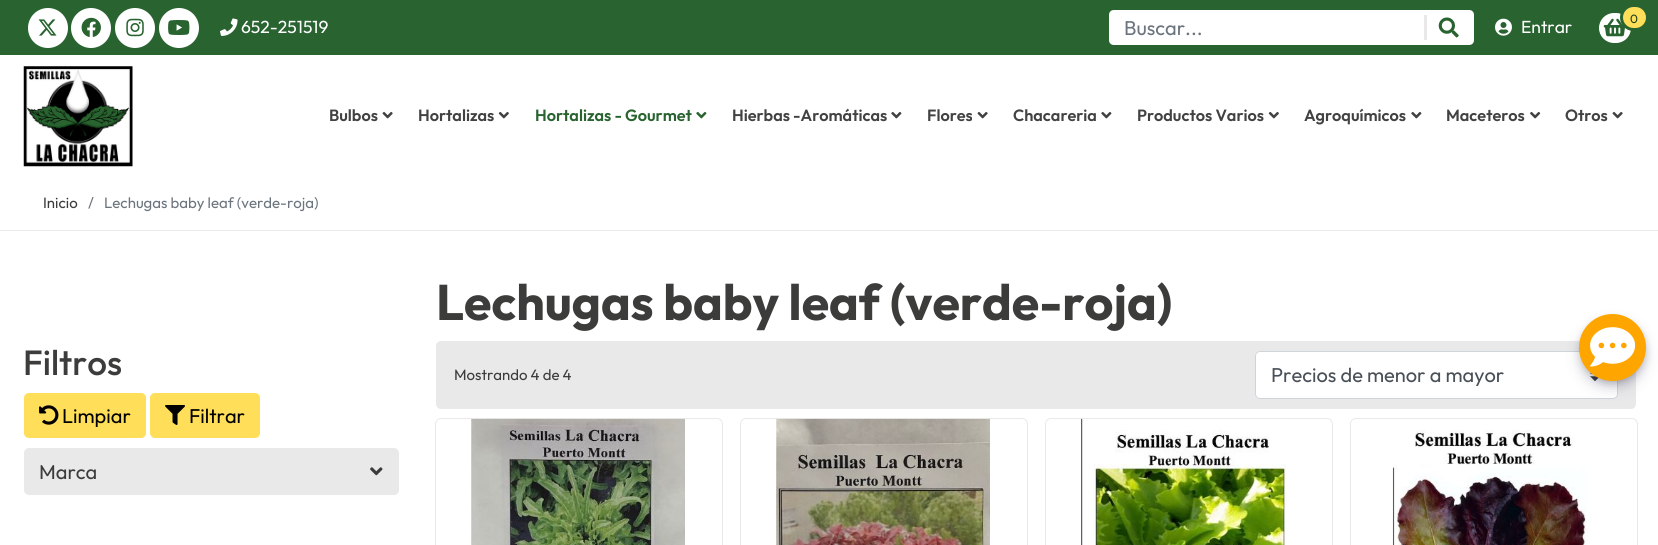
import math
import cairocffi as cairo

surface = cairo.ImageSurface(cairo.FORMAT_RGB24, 1658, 545)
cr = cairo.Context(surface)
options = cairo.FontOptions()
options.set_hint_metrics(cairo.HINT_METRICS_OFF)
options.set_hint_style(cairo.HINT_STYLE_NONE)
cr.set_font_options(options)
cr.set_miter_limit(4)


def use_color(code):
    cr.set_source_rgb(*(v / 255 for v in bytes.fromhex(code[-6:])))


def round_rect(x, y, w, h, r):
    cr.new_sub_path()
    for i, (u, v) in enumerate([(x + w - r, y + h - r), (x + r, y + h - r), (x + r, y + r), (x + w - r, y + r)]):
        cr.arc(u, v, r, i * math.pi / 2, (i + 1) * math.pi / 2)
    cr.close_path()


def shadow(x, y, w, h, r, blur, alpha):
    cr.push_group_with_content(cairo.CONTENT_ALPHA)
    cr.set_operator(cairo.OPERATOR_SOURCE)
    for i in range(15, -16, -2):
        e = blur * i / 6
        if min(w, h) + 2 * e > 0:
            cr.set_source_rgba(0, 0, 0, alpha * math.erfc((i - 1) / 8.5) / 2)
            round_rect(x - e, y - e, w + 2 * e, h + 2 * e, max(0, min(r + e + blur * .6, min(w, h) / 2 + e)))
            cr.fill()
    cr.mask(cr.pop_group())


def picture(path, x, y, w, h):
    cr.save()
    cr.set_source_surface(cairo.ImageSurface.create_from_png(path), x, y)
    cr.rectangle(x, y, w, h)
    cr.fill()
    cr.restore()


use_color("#ffffff")
cr.paint()
use_color("#296430")
cr.rectangle(0, 0, 1658, 55)
cr.fill()
use_color("#ffffff")
cr.arc(48, 28, 20, 0, 2 * math.pi)
cr.fill()
picture("img1.png", 38, 19, 19, 17)
cr.arc(91, 28, 20, 0, 2 * math.pi)
cr.fill()
picture("img2.png", 81, 17, 20, 20)
cr.arc(135, 28, 20, 0, 2 * math.pi)
cr.fill()
picture("img3.png", 126, 18, 18, 19)
cr.arc(179, 28, 20, 0, 2 * math.pi)
cr.fill()
picture("img4.png", 168, 20, 22, 15)
picture("img5.png", 220, 18, 18, 18)
cr.select_font_face("Outfit")
cr.set_font_size(17.5)
cr.move_to(241, 33)
cr.show_text("652-251519")
round_rect(1599, 13, 32, 30, 15)
cr.fill()
picture("img6.png", 1603, 18, 22, 19)
use_color("#ffde59")
round_rect(1621.5, 5.5, 26, 24, 12)
cr.fill_preserve()
use_color("#296430")
cr.set_line_width(3)
cr.stroke()
cr.set_font_size(12)
use_color("#19401b")
cr.move_to(1630, 23)
cr.show_text("0")
use_color("#ffffff")
cr.new_path()
cr.move_to(1114, 10)
cr.line_to(1425, 10)
cr.line_to(1425, 45)
cr.line_to(1114, 45)
cr.curve_to(1111, 45, 1109, 43, 1109, 40)
cr.line_to(1109, 15)
cr.curve_to(1109, 12, 1111, 10, 1114, 10)
cr.close_path()
cr.fill()
cr.set_font_size(20)
use_color("#6c757d")
cr.move_to(1124, 35)
cr.show_text("Buscar...")
use_color("#ffffff")
cr.new_path()
cr.move_to(1424, 10)
cr.line_to(1469, 10)
cr.curve_to(1472, 10, 1474, 12, 1474, 15)
cr.line_to(1474, 40)
cr.curve_to(1474, 43, 1472, 45, 1469, 45)
cr.line_to(1424, 45)
cr.close_path()
cr.fill()
use_color("#e9e9e9")
cr.rectangle(1424, 15, 3, 25)
cr.fill()
picture("img7.png", 1438, 17, 21, 21)
picture("img8.png", 1495, 18, 17, 18)
cr.set_font_size(17.5)
use_color("#ffffff")
cr.move_to(1521, 33)
cr.show_text("Entrar")
picture("img9.png", 23, 66, 110, 101)
cr.select_font_face("Outfit SemiBold")
cr.set_font_size(16.25)
use_color("#424242")
cr.move_to(329, 121)
cr.show_text("Bulbos")
picture("img10.png", 382, 111, 11, 8)
cr.move_to(418, 121)
cr.show_text("Hortalizas")
picture("img11.png", 498, 111, 11, 8)
use_color("#296430")
cr.move_to(535, 121)
cr.show_text("Hortalizas - Gourmet")
picture("img12.png", 696, 111, 11, 8)
use_color("#424242")
cr.move_to(732, 121)
cr.show_text("Hierbas -Aromáticas")
picture("img13.png", 891, 111, 11, 8)
cr.move_to(927, 121)
cr.show_text("Flores")
picture("img10.png", 977, 111, 11, 8)
cr.move_to(1013, 121)
cr.show_text("Chacareria")
picture("img13.png", 1101, 111, 11, 8)
cr.move_to(1137, 121)
cr.show_text("Productos Varios")
picture("img11.png", 1268, 111, 11, 8)
cr.move_to(1304, 121)
cr.show_text("Agroquímicos")
picture("img13.png", 1411, 111, 11, 8)
cr.move_to(1446, 121)
cr.show_text("Maceteros")
picture("img14.png", 1530, 111, 11, 8)
cr.move_to(1565, 121)
cr.show_text("Otros")
picture("img10.png", 1612, 111, 11, 8)
use_color("#e9e9e9")
cr.rectangle(0, 230, 1658, 1)
cr.fill()
cr.select_font_face("Outfit")
cr.set_font_size(15)
use_color("#3c3c3a")
cr.move_to(43, 208)
cr.show_text("Inicio")
use_color("#6c757d")
cr.move_to(88, 208)
cr.show_text("/")
cr.move_to(104, 208)
cr.show_text("Lechugas baby leaf (verde-roja)")
cr.select_font_face("Outfit", cairo.FONT_SLANT_NORMAL, cairo.FONT_WEIGHT_BOLD)
cr.set_font_size(50)
use_color("#3c3c3a")
cr.move_to(436, 320)
cr.show_text("Lechugas baby leaf (verde-roja)")
cr.select_font_face("Outfit Medium")
cr.set_font_size(35)
cr.move_to(23, 375)
cr.show_text("Filtros")
use_color("#ffde59")
round_rect(24, 393, 122, 45, 5)
cr.fill()
picture("img15.png", 39, 405, 20, 20)
cr.select_font_face("Outfit")
cr.set_font_size(20)
use_color("#000000")
cr.move_to(62, 423)
cr.show_text("Limpiar")
use_color("#ffde59")
round_rect(150, 393, 110, 45, 5)
cr.fill()
picture("img16.png", 165, 405, 20, 20)
use_color("#000000")
cr.move_to(189, 423)
cr.show_text("Filtrar")
use_color("#e9e9e9")
round_rect(24, 448, 375, 47, 5)
cr.fill()
use_color("#3c3c3a")
cr.move_to(39, 479)
cr.show_text("Marca")
picture("img17.png", 370, 467, 13, 9)
use_color("#e9e9e9")
round_rect(436, 341, 1200, 68, 5)
cr.fill()
cr.set_font_size(15)
use_color("#3c3c3a")
cr.move_to(454, 380)
cr.show_text("Mostrando 4 de 4")
use_color("#ffffff")
round_rect(1255, 351, 363, 48, 5)
cr.fill()
picture("img18.png", 1590, 372, 9, 9)
round_rect(1255.5, 351.5, 362, 47, 4.5)
use_color("#ced4da")
cr.set_line_width(1)
cr.stroke()
cr.set_font_size(20)
use_color("#495057")
cr.move_to(1271, 382)
cr.show_text("Precios de menor a mayor")
round_rect(435.5, 418.5, 287, 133, 5.5)
use_color("#e9e9e9")
cr.stroke()
picture("img19.png", 471, 418, 214, 127)
round_rect(740.5, 418.5, 287, 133, 5.5)
cr.stroke()
picture("img20.png", 776, 418, 214, 127)
round_rect(1045.5, 418.5, 287, 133, 5.5)
cr.stroke()
picture("img21.png", 1081, 418, 206, 127)
round_rect(1350.5, 418.5, 287, 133, 5.5)
cr.stroke()
picture("img22.png", 1392, 430, 196, 115)
use_color("#000000")
shadow(1583, 321, 60, 60, 30, 4.5, 0.3)
use_color("#32325d")
shadow(1581, 324, 63, 62, 31, 7.5, 0.25)
use_color("#ffa500")
cr.arc(1612.5, 347.5, 33.5, 0, 2 * math.pi)
cr.fill()
picture("img23.png", 1590, 327, 46, 40)
surface.write_to_png("result.png")
